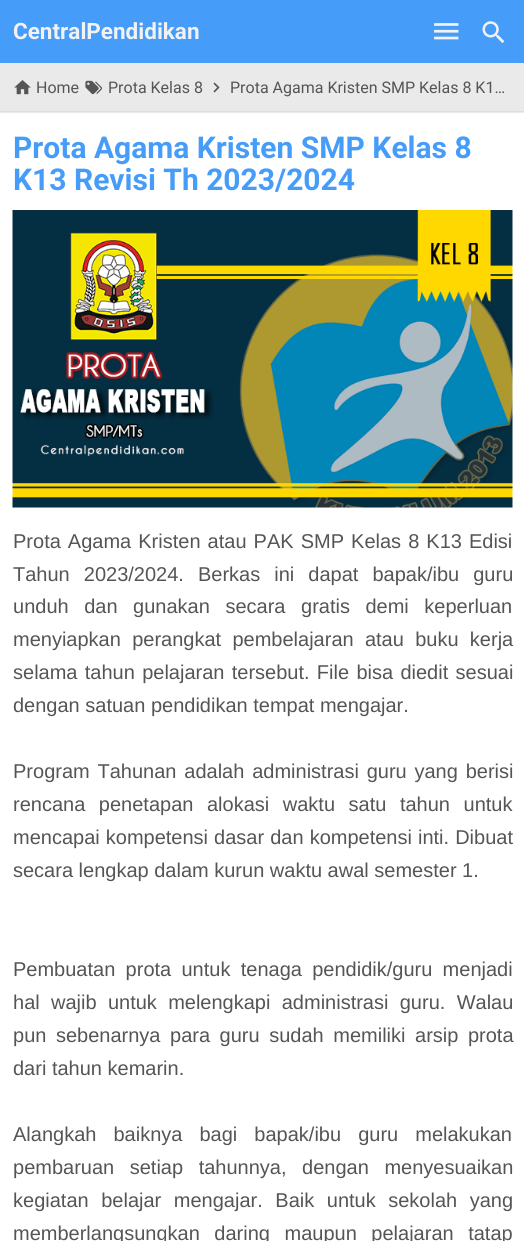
import math
import cairocffi as cairo

surface = cairo.ImageSurface(cairo.FORMAT_RGB24, 524, 1241)
cr = cairo.Context(surface)
options = cairo.FontOptions()
options.set_hint_metrics(cairo.HINT_METRICS_OFF)
options.set_hint_style(cairo.HINT_STYLE_NONE)
cr.set_font_options(options)
cr.set_miter_limit(4)


def use_color(code):
    cr.set_source_rgb(*(v / 255 for v in bytes.fromhex(code[-6:])))


def spaced_text(x, y, s, letter, word):
    cr.move_to(x, y)
    for ch in s:
        cr.show_text(ch)
        cr.rel_move_to(letter + word * (ch == ' '), 0)


def picture(path, x, y, w, h):
    cr.save()
    cr.set_source_surface(cairo.ImageSurface.create_from_png(path), x, y)
    cr.rectangle(x, y, w, h)
    cr.fill()
    cr.restore()


use_color("#eaeaea")
cr.paint()
use_color("#469cf9")
cr.rectangle(0, 0, 524, 63)
cr.fill()
cr.select_font_face("Roboto", cairo.FONT_SLANT_NORMAL, cairo.FONT_WEIGHT_BOLD)
cr.set_font_size(22.5)
use_color("#f2f2f2")
cr.move_to(13, 39)
cr.show_text("CentralPendidikan")
picture("img1.png", 434, 23, 25, 17)
picture("img2.png", 482, 21, 23, 22)
use_color("#dddddd")
cr.rectangle(0, 111, 524, 1)
cr.fill()
picture("img3.png", 14, 80, 17, 15)
cr.select_font_face("Roboto")
cr.set_font_size(16)
use_color("#555555")
cr.move_to(36, 93)
cr.show_text("Home")
picture("img4.png", 85, 80, 18, 15)
cr.move_to(108, 93)
cr.show_text("Prota Kelas 8")
picture("img5.png", 213, 82, 7, 11)
cr.move_to(230, 93)
cr.show_text("Prota Agama Kristen SMP Kelas 8 K1…")
use_color("#ffffff")
cr.rectangle(0, 113, 524, 1128)
cr.fill()
cr.select_font_face("Roboto", cairo.FONT_SLANT_NORMAL, cairo.FONT_WEIGHT_BOLD)
cr.set_font_size(30)
use_color("#469cf9")
cr.move_to(13, 158)
cr.show_text("Prota Agama Kristen SMP Kelas 8")
cr.move_to(13, 190)
cr.show_text("K13 Revisi Th 2023/2024")
picture("img6.png", 12, 210, 501, 298)
cr.select_font_face("Liberation Sans")
cr.set_font_size(20)
use_color("#555555")
spaced_text(13, 548, "Prota Agama Kristen atau PAK SMP Kelas 8 K13 Edisi", 0, 1.5)
spaced_text(13, 581, "Tahun 2023/2024. Berkas ini dapat bapak/ibu guru", 0, 8.5)
spaced_text(13, 613, "unduh dan gunakan secara gratis demi keperluan", 0, 10)
spaced_text(13, 646, "menyiapkan perangkat pembelajaran atau buku kerja", 0, 5.75)
spaced_text(13, 679, "selama tahun pelajaran tersebut. File bisa diedit sesuai", 0, 1.75)
cr.move_to(13, 712)
cr.show_text("dengan satuan pendidikan tempat mengajar.")
spaced_text(13, 778, "Program Tahunan adalah administrasi guru yang berisi", 0, 2.25)
spaced_text(13, 811, "rencana penetapan alokasi waktu satu tahun untuk", 0, 8)
spaced_text(13, 844, "mencapai kompetensi dasar dan kompetensi inti. Dibuat", 0, 0.5)
cr.move_to(13, 877)
cr.show_text("secara lengkap dalam kurun waktu awal semester 1.")
spaced_text(13, 976, "Pembuatan prota untuk tenaga pendidik/guru menjadi", 0, 4.75)
spaced_text(13, 1009, "hal wajib untuk melengkapi administrasi guru. Walau", 0, 5.75)
spaced_text(13, 1042, "pun sebenarnya para guru sudah memiliki arsip prota", 0, 4)
cr.move_to(13, 1075)
cr.show_text("dari tahun kemarin.")
spaced_text(13, 1141, "Alangkah baiknya bagi bapak/ibu guru melakukan", 0, 11.5)
spaced_text(13, 1174, "pembaruan setiap tahunnya, dengan menyesuaikan", 0, 10)
spaced_text(13, 1207, "kegiatan belajar mengajar. Baik untuk sekolah yang", 0, 7)
spaced_text(13, 1240, "memberlangsungkan daring maupun pelajaran tatap", 0, 9)
surface.write_to_png("result.png")
